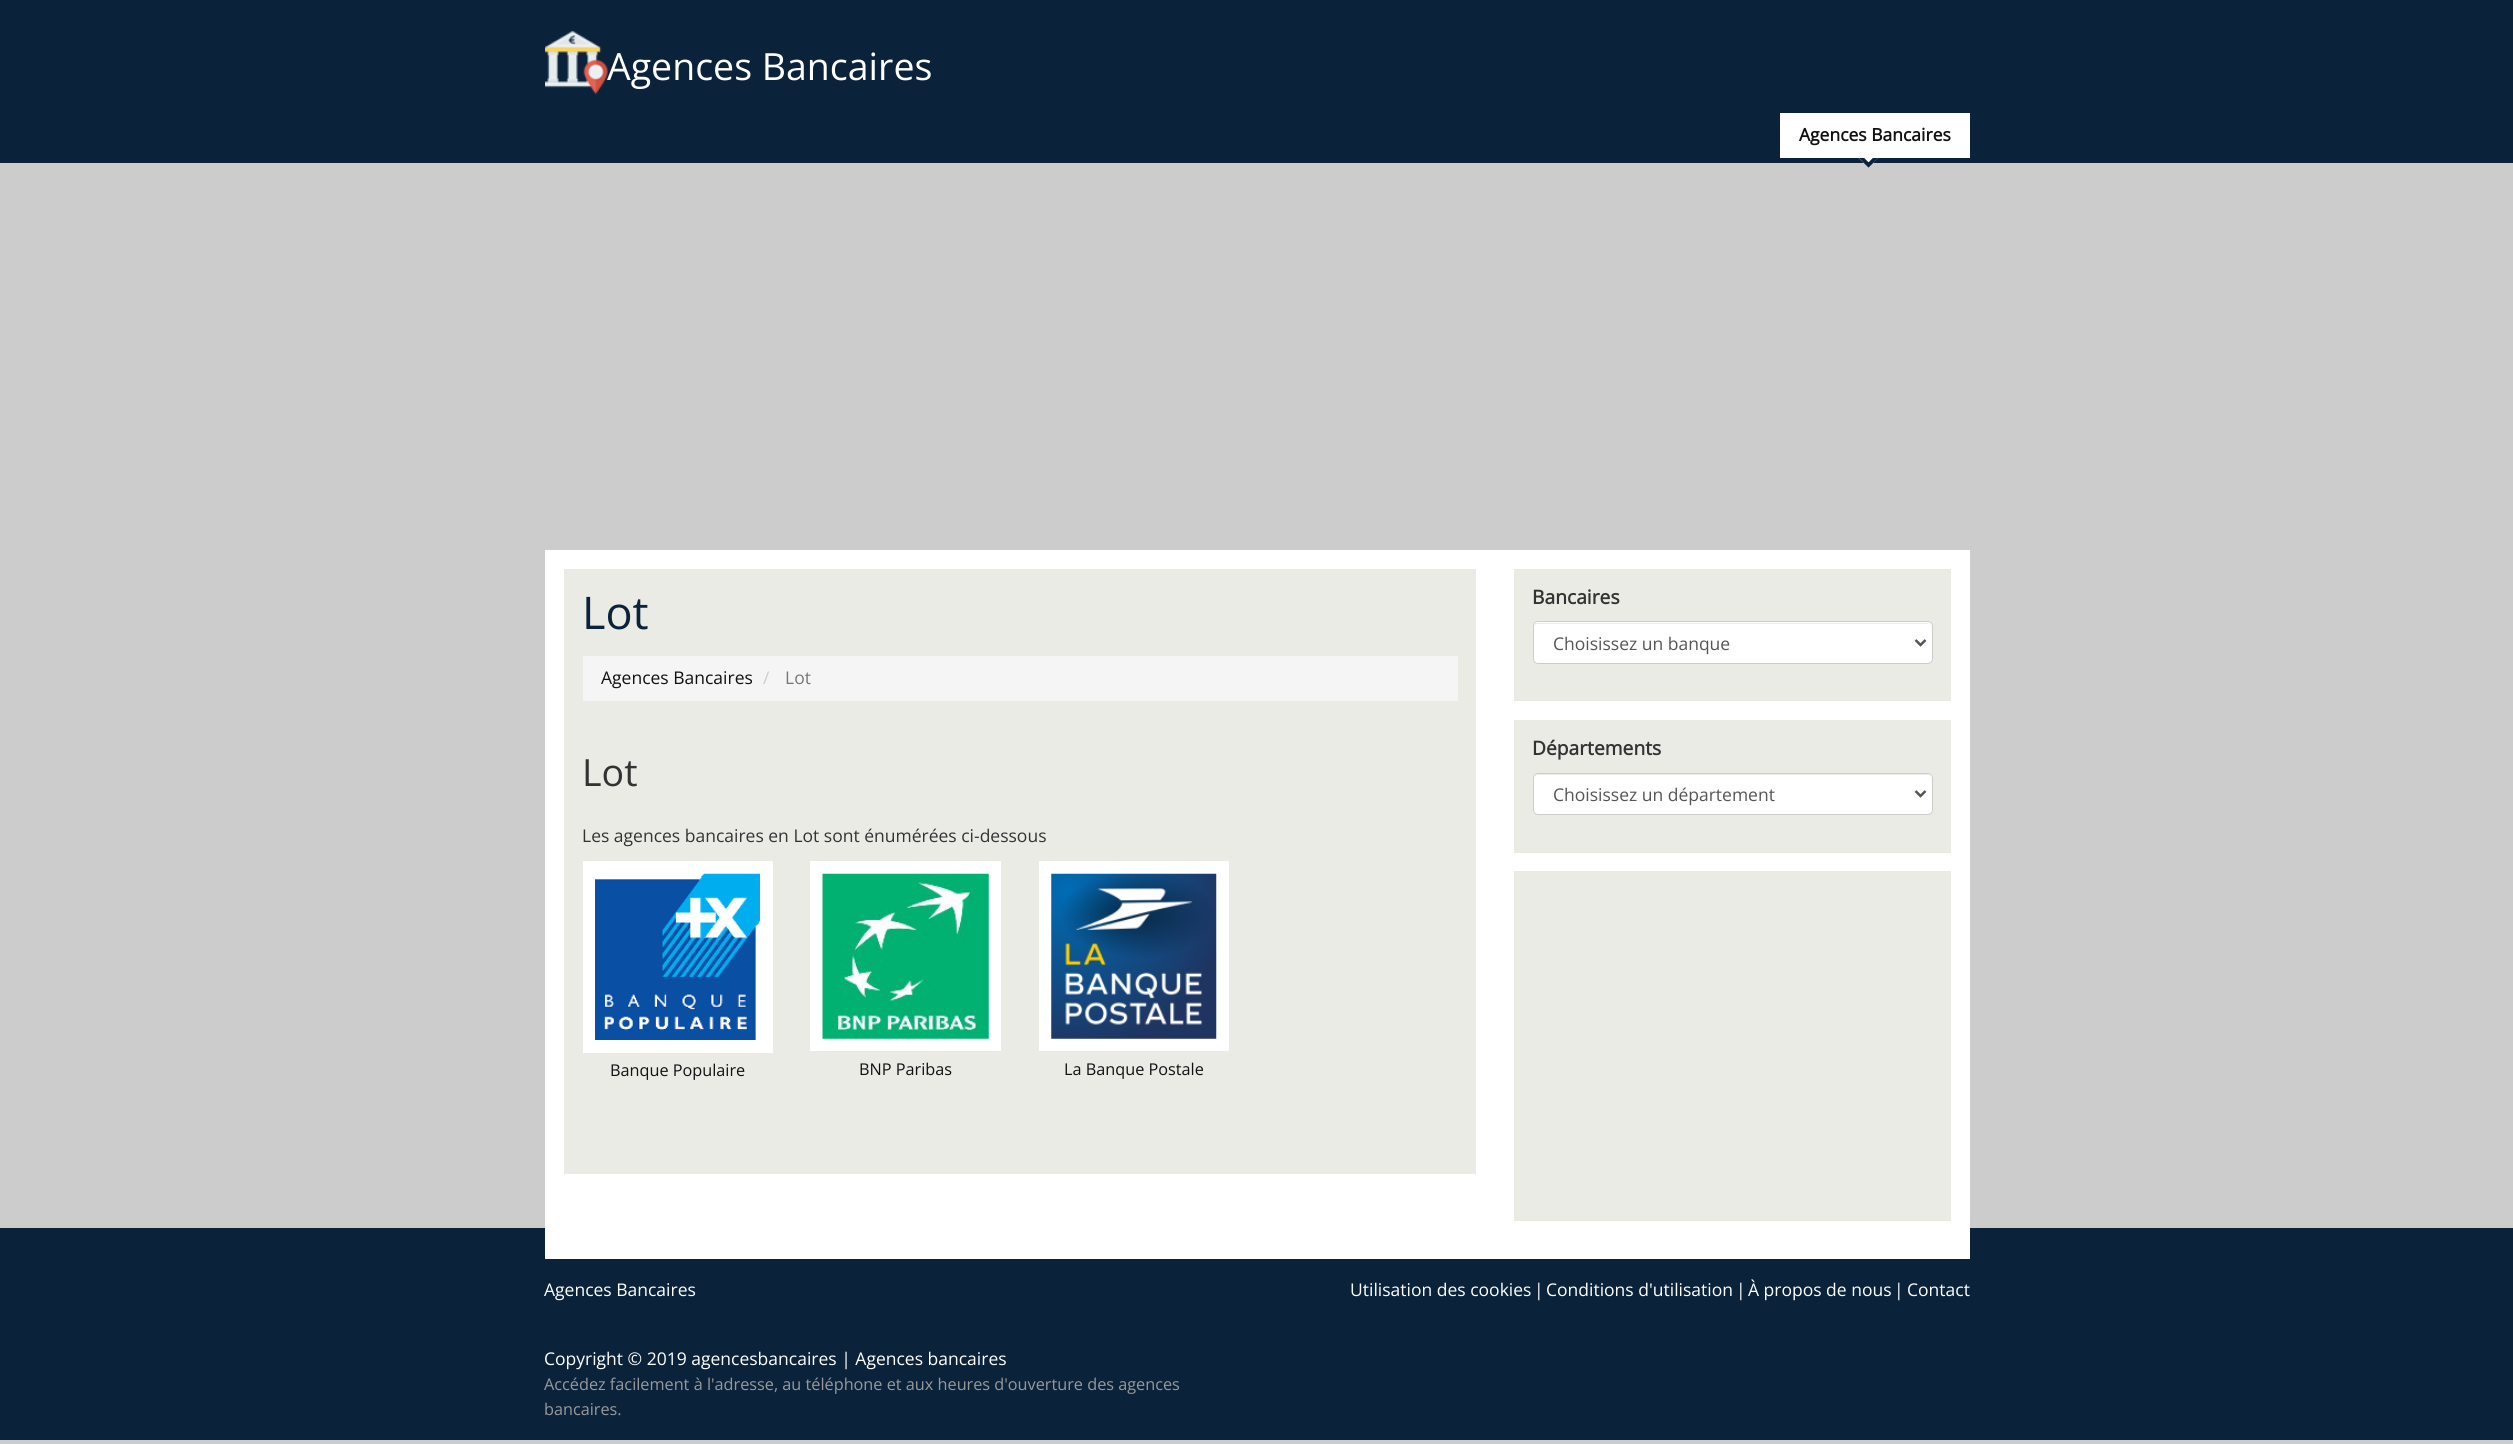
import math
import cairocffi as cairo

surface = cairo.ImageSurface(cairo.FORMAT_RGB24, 2513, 1444)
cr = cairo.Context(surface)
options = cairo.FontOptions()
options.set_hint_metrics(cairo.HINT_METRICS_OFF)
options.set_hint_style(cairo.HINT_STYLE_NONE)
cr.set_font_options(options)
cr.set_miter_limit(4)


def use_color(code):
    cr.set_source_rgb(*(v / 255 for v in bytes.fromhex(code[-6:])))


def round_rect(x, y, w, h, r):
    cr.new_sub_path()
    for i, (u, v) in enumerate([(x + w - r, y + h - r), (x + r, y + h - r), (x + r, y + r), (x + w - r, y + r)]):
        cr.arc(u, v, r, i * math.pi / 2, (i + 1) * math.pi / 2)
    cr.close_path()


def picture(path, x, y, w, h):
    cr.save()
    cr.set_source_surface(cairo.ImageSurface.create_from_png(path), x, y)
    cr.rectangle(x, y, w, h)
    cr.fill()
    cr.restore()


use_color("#cccccc")
cr.paint()
use_color("#0a233b")
cr.rectangle(0, 0, 2513, 163)
cr.fill()
picture("img1.png", 545, 31, 63, 63)
cr.select_font_face("Open Sans")
cr.set_font_size(37.5)
use_color("#ffffff")
cr.move_to(607, 80)
cr.show_text("Agences Bancaires")
cr.new_path()
cr.move_to(1868.5, 141)
cr.line_to(1881.5, 154.5)
cr.line_to(1868.5, 167.5)
cr.line_to(1855, 154.5)
cr.close_path()
cr.fill()
cr.new_path()
cr.move_to(1868.5, 144)
cr.line_to(1879, 154.5)
cr.line_to(1868.5, 165)
cr.line_to(1858, 154.5)
cr.close_path()
use_color("#0a233b")
cr.set_line_width(3.8)
cr.stroke()
use_color("#ffffff")
cr.rectangle(1780, 113, 190, 45)
cr.fill()
cr.select_font_face("Open Sans", cairo.FONT_SLANT_NORMAL, cairo.FONT_WEIGHT_BOLD)
cr.set_font_size(17.5)
use_color("#111111")
cr.move_to(1799, 141)
cr.show_text("Agences Bancaires")
use_color("#0a233b")
cr.rectangle(0, 1228, 2513, 212)
cr.fill()
use_color("#ffffff")
cr.rectangle(545, 550, 1425, 709)
cr.fill()
use_color("#ebebe6")
cr.rectangle(564, 569, 912, 605)
cr.fill()
cr.select_font_face("Open Sans")
cr.set_font_size(45)
use_color("#0a233b")
cr.move_to(582, 629)
cr.show_text("Lot")
use_color("#f5f5f5")
cr.rectangle(583, 656, 875, 45)
cr.fill()
cr.set_font_size(17.5)
use_color("#111111")
cr.move_to(601, 684)
cr.show_text("Agences Bancaires")
use_color("#cccccc")
cr.move_to(763, 684)
cr.show_text("/")
use_color("#777777")
cr.move_to(785, 684)
cr.show_text("Lot")
cr.set_font_size(37.5)
use_color("#333333")
cr.move_to(582, 786)
cr.show_text("Lot")
cr.set_font_size(17.5)
cr.move_to(582, 842)
cr.show_text("Les agences bancaires en Lot sont énumérées ci-dessous")
use_color("#ffffff")
cr.rectangle(583, 861, 190, 192)
cr.fill()
picture("img2.png", 595, 873, 165, 167)
cr.set_font_size(16.25)
use_color("#111111")
cr.move_to(610, 1076)
cr.show_text("Banque Populaire")
use_color("#ffffff")
cr.rectangle(810, 861, 191, 190)
cr.fill()
picture("img3.png", 822, 873, 167, 166)
use_color("#111111")
cr.move_to(859, 1075)
cr.show_text("BNP Paribas")
use_color("#ffffff")
cr.rectangle(1039, 861, 190, 190)
cr.fill()
picture("img4.png", 1051, 873, 166, 166)
use_color("#111111")
cr.move_to(1064, 1075)
cr.show_text("La Banque Postale")
use_color("#ebebe6")
cr.rectangle(1514, 569, 437, 132)
cr.fill()
cr.select_font_face("Open Sans", cairo.FONT_SLANT_NORMAL, cairo.FONT_WEIGHT_BOLD)
cr.set_font_size(19.25)
use_color("#333333")
cr.move_to(1532, 604)
cr.show_text("Bancaires")
use_color("#ffffff")
round_rect(1533, 621, 400, 43, 5)
cr.fill()
use_color("#ececec")
cr.new_path()
cr.move_to(1538, 624)
cr.line_to(1928, 624)
cr.curve_to(1930, 624, 1931, 625, 1931, 628)
cr.curve_to(1931, 625, 1930, 623, 1927, 623)
cr.line_to(1538, 623)
cr.curve_to(1535, 623, 1534, 625, 1534, 628)
cr.curve_to(1534, 625, 1535, 624, 1538, 624)
cr.close_path()
cr.fill()
round_rect(1533.5, 621.5, 399, 42, 4.5)
use_color("#cccccc")
cr.set_line_width(1)
cr.stroke()
cr.new_path()
cr.move_to(1915.5, 640)
cr.line_to(1920.5, 645)
cr.line_to(1925.5, 640)
use_color("#555555")
cr.set_line_width(2.5)
cr.stroke()
cr.select_font_face("Open Sans")
cr.set_font_size(17.5)
cr.move_to(1553, 650)
cr.show_text("Choisissez un banque")
use_color("#ebebe6")
cr.rectangle(1514, 720, 437, 133)
cr.fill()
cr.select_font_face("Open Sans", cairo.FONT_SLANT_NORMAL, cairo.FONT_WEIGHT_BOLD)
cr.set_font_size(19.25)
use_color("#333333")
cr.move_to(1532, 755)
cr.show_text("Départements")
use_color("#ffffff")
round_rect(1533, 773, 400, 42, 5)
cr.fill()
use_color("#ececec")
cr.new_path()
cr.move_to(1538, 775)
cr.line_to(1928, 775)
cr.curve_to(1930, 775, 1931, 777, 1931, 779)
cr.curve_to(1931, 776, 1930, 774, 1927, 774)
cr.line_to(1538, 774)
cr.curve_to(1535, 774, 1534, 776, 1534, 779)
cr.curve_to(1534, 777, 1535, 775, 1538, 775)
cr.close_path()
cr.fill()
round_rect(1533.5, 773.5, 399, 41, 4.5)
use_color("#cccccc")
cr.set_line_width(1)
cr.stroke()
cr.new_path()
cr.move_to(1915.5, 791)
cr.line_to(1920.5, 796)
cr.line_to(1925.5, 791)
use_color("#555555")
cr.set_line_width(2.5)
cr.stroke()
cr.select_font_face("Open Sans")
cr.set_font_size(17.5)
cr.move_to(1553, 801)
cr.show_text("Choisissez un département")
use_color("#ebebe6")
cr.rectangle(1514, 871, 437, 350)
cr.fill()
use_color("#ffffff")
cr.move_to(544, 1296)
cr.show_text("Agences Bancaires")
cr.move_to(1350, 1296)
cr.show_text("Utilisation des cookies")
cr.move_to(1534, 1296)
cr.show_text("|")
cr.move_to(1546, 1296)
cr.show_text("Conditions d'utilisation")
cr.move_to(1736, 1296)
cr.show_text("|")
cr.move_to(1748, 1296)
cr.show_text("À propos de nous")
cr.move_to(1894, 1296)
cr.show_text("|")
cr.move_to(1907, 1296)
cr.show_text("Contact")
cr.move_to(544, 1365)
cr.show_text("Copyright © 2019 agencesbancaires | Agences bancaires")
cr.set_font_size(16.25)
use_color("#999999")
cr.move_to(544, 1390)
cr.show_text("Accédez facilement à l'adresse, au téléphone et aux heures d'ouverture des agences")
cr.move_to(544, 1415)
cr.show_text("bancaires.")
surface.write_to_png("result.png")
